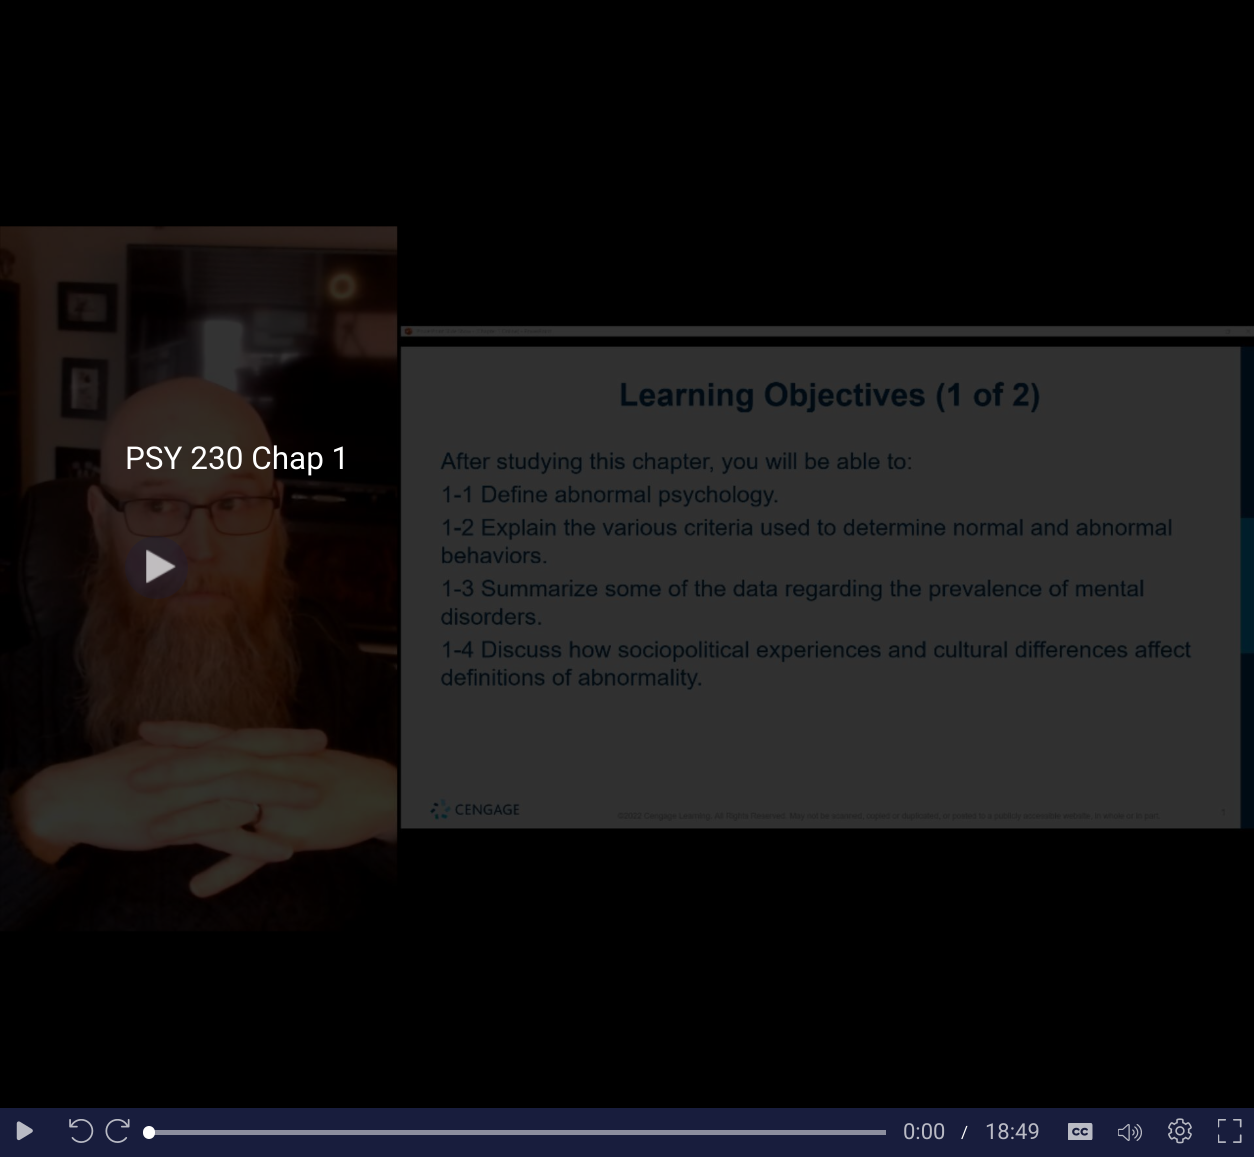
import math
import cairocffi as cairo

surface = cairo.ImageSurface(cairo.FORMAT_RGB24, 1254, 1157)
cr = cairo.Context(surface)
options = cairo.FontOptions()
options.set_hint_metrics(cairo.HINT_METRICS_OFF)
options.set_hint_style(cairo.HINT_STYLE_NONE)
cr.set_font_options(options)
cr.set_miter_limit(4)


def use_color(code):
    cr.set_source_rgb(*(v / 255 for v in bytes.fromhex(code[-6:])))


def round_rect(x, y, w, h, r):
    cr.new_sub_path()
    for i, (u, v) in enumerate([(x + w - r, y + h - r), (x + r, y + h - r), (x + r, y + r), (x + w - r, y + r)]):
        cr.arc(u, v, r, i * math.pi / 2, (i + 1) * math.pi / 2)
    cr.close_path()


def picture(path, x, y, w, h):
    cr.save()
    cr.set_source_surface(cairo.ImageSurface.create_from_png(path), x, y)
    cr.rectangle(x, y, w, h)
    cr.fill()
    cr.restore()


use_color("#000000")
cr.paint()
picture("img2.png", 0, 226, 1254, 706)
cr.select_font_face("Roboto")
cr.set_font_size(31.5)
use_color("#ffffff")
cr.move_to(125, 469)
cr.show_text("PSY 230 Chap 1")
cr.set_source_rgba(0.094, 0.114, 0.239, 0.3)
cr.new_path()
cr.arc(156.5, 567.5, 31.5, 0, 2 * math.pi)
cr.fill()
picture("img1.png", 146, 549, 30, 35)
use_color("#181d3d")
cr.rectangle(0, 1108, 944, 49)
cr.fill()
picture("img3.png", 16, 1121, 17, 20)
cr.rectangle(944, 1108, 310, 49)
cr.fill()
picture("img4.png", 1168, 1118, 24, 26)
picture("img5.png", 69, 1119, 25, 24)
picture("img6.png", 105, 1119, 25, 24)
use_color("#8c8e9e")
cr.rectangle(149, 1130, 737, 5)
cr.fill()
use_color("#ffffff")
round_rect(143, 1126, 12, 13, 6)
cr.fill()
cr.set_font_size(22)
use_color("#babbc5")
cr.move_to(903, 1139)
cr.show_text("0:00")
cr.set_font_size(17)
use_color("#ffffff")
cr.move_to(961, 1138)
cr.show_text("/")
cr.set_font_size(22)
use_color("#babbc5")
cr.move_to(985, 1139)
cr.show_text("18:49")
picture("img7.png", 1068, 1123, 25, 17)
picture("img8.png", 1118, 1124, 24, 17)
picture("img9.png", 1218, 1119, 24, 24)
surface.write_to_png("result.png")
